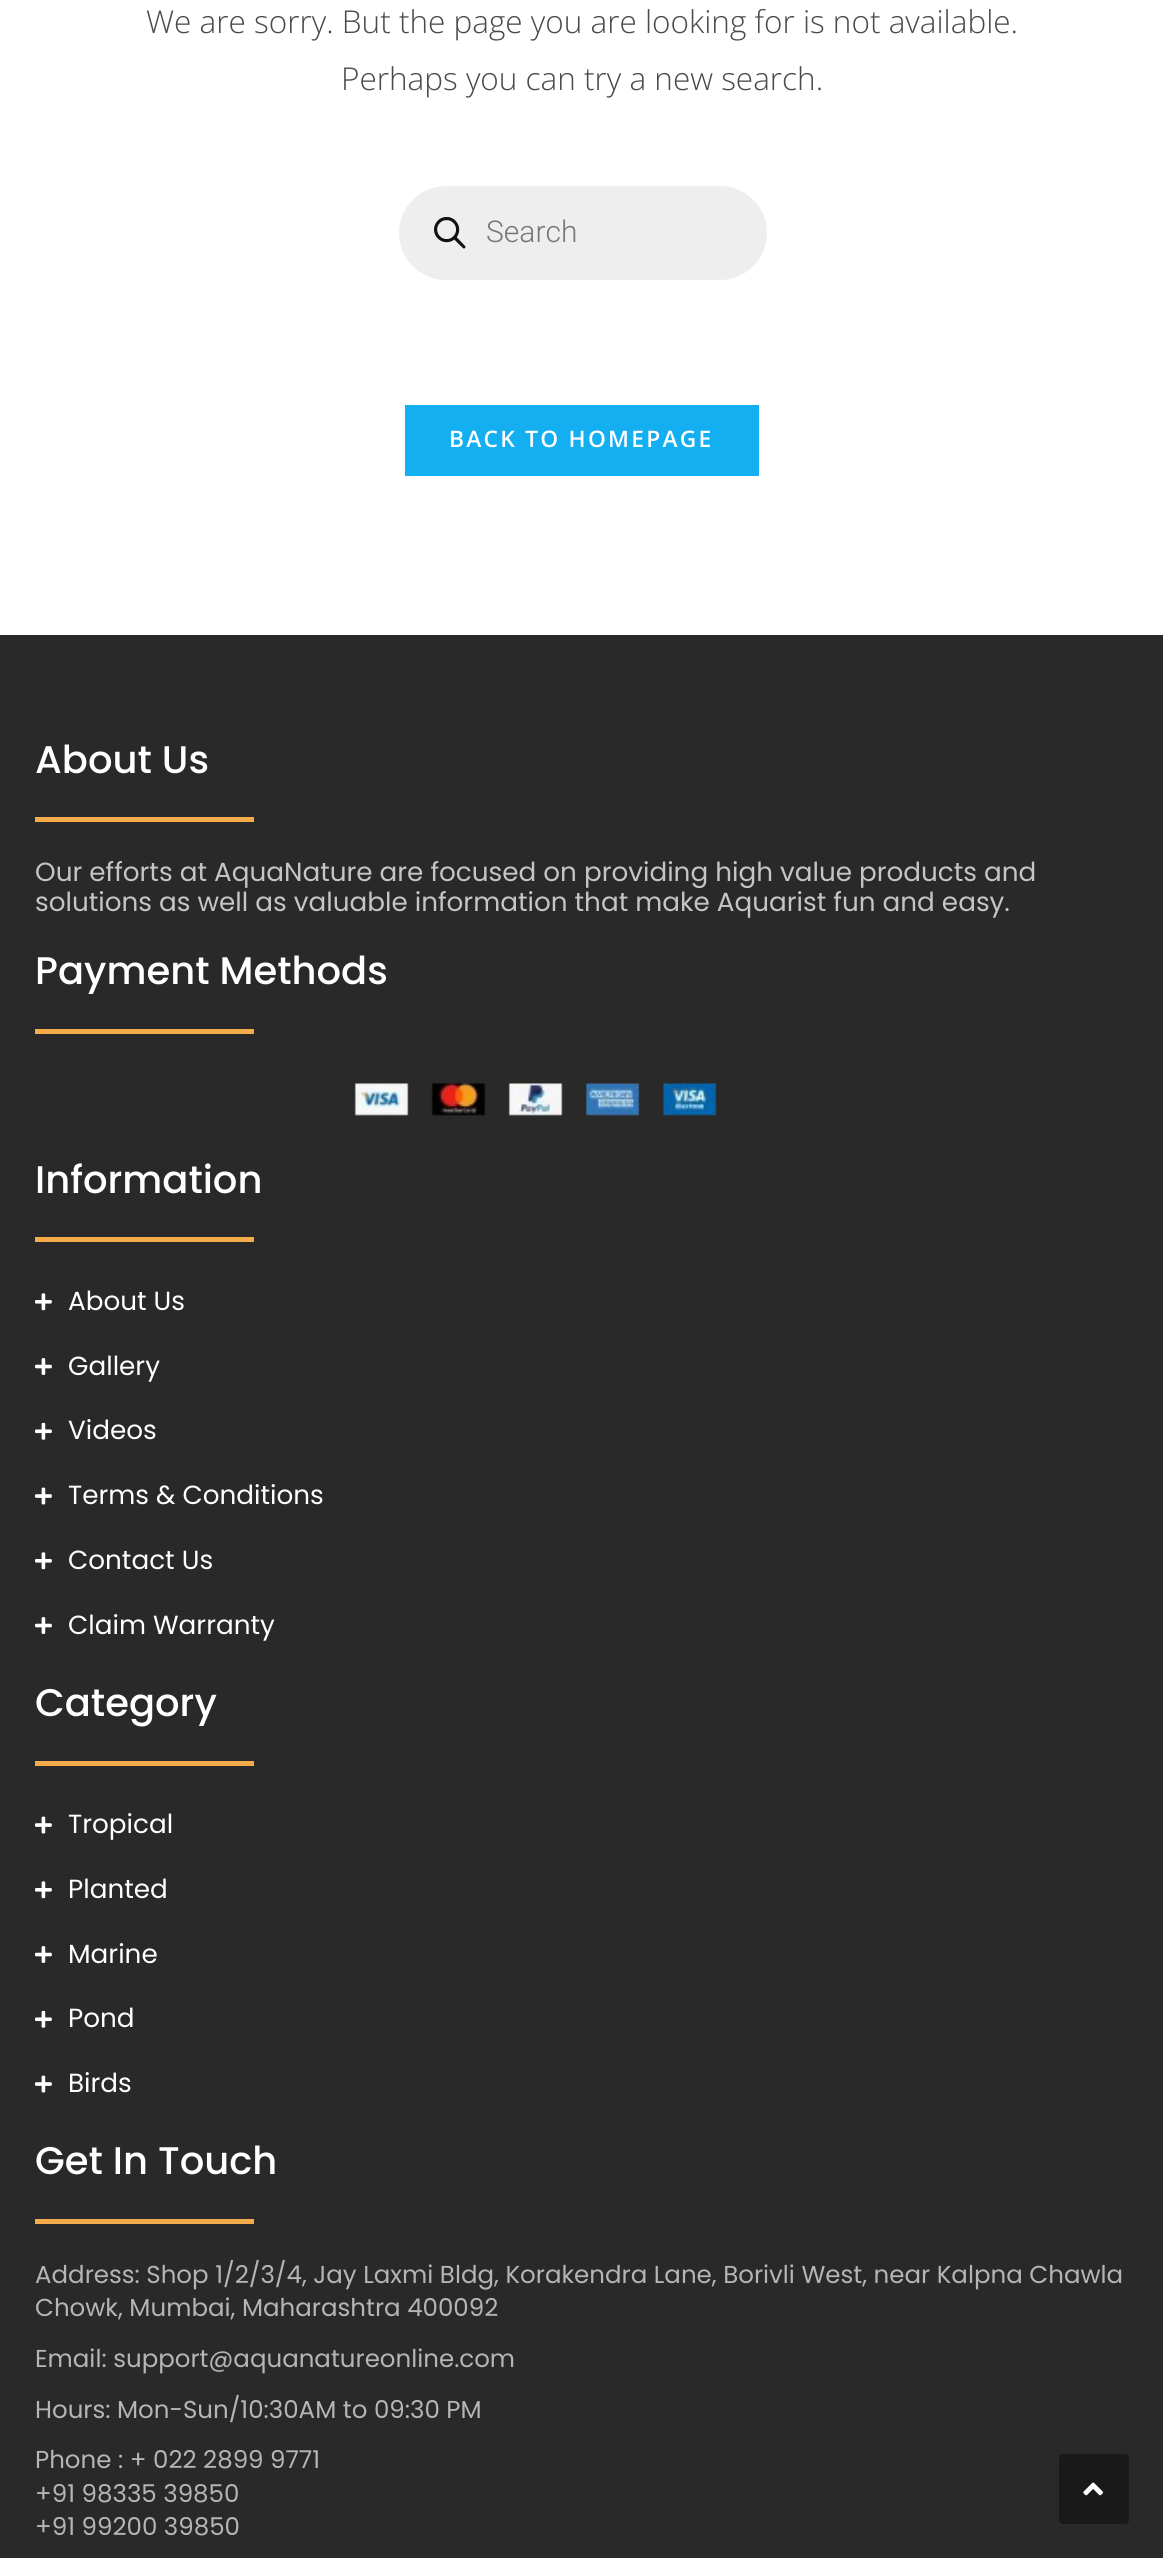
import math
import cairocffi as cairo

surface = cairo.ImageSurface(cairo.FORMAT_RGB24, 1163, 2558)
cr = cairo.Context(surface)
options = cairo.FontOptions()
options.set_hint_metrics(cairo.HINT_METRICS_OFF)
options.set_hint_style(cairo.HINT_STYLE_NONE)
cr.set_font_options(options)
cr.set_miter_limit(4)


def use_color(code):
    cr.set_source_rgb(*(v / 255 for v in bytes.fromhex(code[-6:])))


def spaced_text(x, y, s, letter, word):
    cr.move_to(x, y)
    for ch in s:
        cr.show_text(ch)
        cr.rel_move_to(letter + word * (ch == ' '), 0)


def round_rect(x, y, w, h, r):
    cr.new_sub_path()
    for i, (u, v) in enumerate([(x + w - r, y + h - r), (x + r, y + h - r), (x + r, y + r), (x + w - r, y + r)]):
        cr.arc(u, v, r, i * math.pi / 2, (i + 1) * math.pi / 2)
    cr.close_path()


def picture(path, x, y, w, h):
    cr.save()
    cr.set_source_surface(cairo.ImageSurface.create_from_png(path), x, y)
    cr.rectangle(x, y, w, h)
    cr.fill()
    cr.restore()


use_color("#ffffff")
cr.paint()
cr.select_font_face("Open Sans Light")
cr.set_font_size(31.5)
use_color("#4a4a4a")
cr.move_to(146, 33)
cr.show_text("We are sorry. But the page you are looking for is not available.")
cr.move_to(341, 90)
cr.show_text("Perhaps you can try a new search.")
use_color("#eeeeee")
round_rect(399, 186, 368, 94, 47)
cr.fill()
picture("img1.png", 434, 217, 32, 32)
cr.select_font_face("Roboto Light")
cr.set_font_size(30)
use_color("#777777")
cr.move_to(486, 242)
cr.show_text("Search")
use_color("#13aff0")
cr.rectangle(405, 405, 354, 71)
cr.fill()
cr.select_font_face("Open Sans SemiBold")
cr.set_font_size(22.75)
use_color("#ffffff")
spaced_text(449, 447, "BACK TO HOMEPAGE", 2.25, 0)
use_color("#292929")
cr.rectangle(0, 635, 1163, 1923)
cr.fill()
cr.select_font_face("Poppins Medium")
cr.set_font_size(38.5)
use_color("#ffffff")
cr.move_to(35, 773)
cr.show_text("About Us")
use_color("#f6ab4a")
cr.rectangle(35, 817, 219, 5)
cr.fill()
cr.select_font_face("Poppins")
cr.set_font_size(26.25)
use_color("#c5c5c5")
cr.move_to(35, 881)
cr.show_text("Our efforts at AquaNature are focused on providing high value products and")
cr.move_to(35, 911)
cr.show_text("solutions as well as valuable information that make Aquarist fun and easy.")
cr.select_font_face("Poppins Medium")
cr.set_font_size(38.5)
use_color("#ffffff")
cr.move_to(35, 984)
cr.show_text("Payment Methods")
use_color("#f6ab4a")
cr.rectangle(35, 1029, 219, 5)
cr.fill()
picture("img2.png", 354, 1083, 363, 33)
use_color("#ffffff")
cr.move_to(35, 1193)
cr.show_text("Information")
use_color("#f6ab4a")
cr.rectangle(35, 1237, 219, 5)
cr.fill()
picture("img3.png", 35, 1293, 17, 18)
cr.select_font_face("Poppins")
cr.set_font_size(26.25)
use_color("#ffffff")
cr.move_to(68, 1310)
cr.show_text("About Us")
picture("img4.png", 35, 1358, 17, 17)
cr.move_to(68, 1375)
cr.show_text("Gallery")
picture("img5.png", 35, 1422, 17, 18)
cr.move_to(68, 1439)
cr.show_text("Videos")
picture("img6.png", 35, 1487, 17, 18)
cr.move_to(68, 1504)
cr.show_text("Terms & Conditions")
picture("img3.png", 35, 1552, 17, 18)
cr.move_to(68, 1569)
cr.show_text("Contact Us")
picture("img4.png", 35, 1617, 17, 17)
cr.move_to(68, 1634)
cr.show_text("Claim Warranty")
cr.select_font_face("Poppins Medium")
cr.set_font_size(38.5)
cr.move_to(35, 1716)
cr.show_text("Category")
use_color("#f6ab4a")
cr.rectangle(35, 1761, 219, 5)
cr.fill()
picture("img6.png", 35, 1816, 17, 18)
cr.select_font_face("Poppins")
cr.set_font_size(26.25)
use_color("#ffffff")
cr.move_to(68, 1833)
cr.show_text("Tropical")
picture("img3.png", 35, 1881, 17, 18)
cr.move_to(68, 1898)
cr.show_text("Planted")
picture("img4.png", 35, 1946, 17, 17)
cr.move_to(68, 1963)
cr.show_text("Marine")
picture("img5.png", 35, 2010, 17, 18)
cr.move_to(68, 2027)
cr.show_text("Pond")
picture("img6.png", 35, 2075, 17, 18)
cr.move_to(68, 2092)
cr.show_text("Birds")
cr.select_font_face("Poppins Medium")
cr.set_font_size(38.5)
cr.move_to(35, 2174)
cr.show_text("Get In Touch")
use_color("#f6ab4a")
cr.rectangle(35, 2219, 219, 5)
cr.fill()
cr.select_font_face("Poppins")
cr.set_font_size(24.5)
use_color("#b7b4b4")
cr.move_to(35, 2283)
cr.show_text("Address: Shop 1/2/3/4, Jay Laxmi Bldg, Korakendra Lane, Borivli West, near Kalpna Chawla")
cr.move_to(35, 2316)
cr.show_text("Chowk, Mumbai, Maharashtra 400092")
cr.move_to(35, 2367)
cr.show_text("Email: support@aquanatureonline.com")
cr.move_to(35, 2418)
cr.show_text("Hours: Mon-Sun/10:30AM to 09:30 PM")
cr.move_to(35, 2468)
cr.show_text("Phone : + 022 2899 9771")
cr.move_to(35, 2502)
cr.show_text("+91 98335 39850")
cr.move_to(35, 2535)
cr.show_text("+91 99200 39850")
use_color("#191919")
round_rect(1059, 2454, 70, 70, 4)
cr.fill()
picture("img7.png", 1083, 2482, 20, 14)
surface.write_to_png("result.png")
